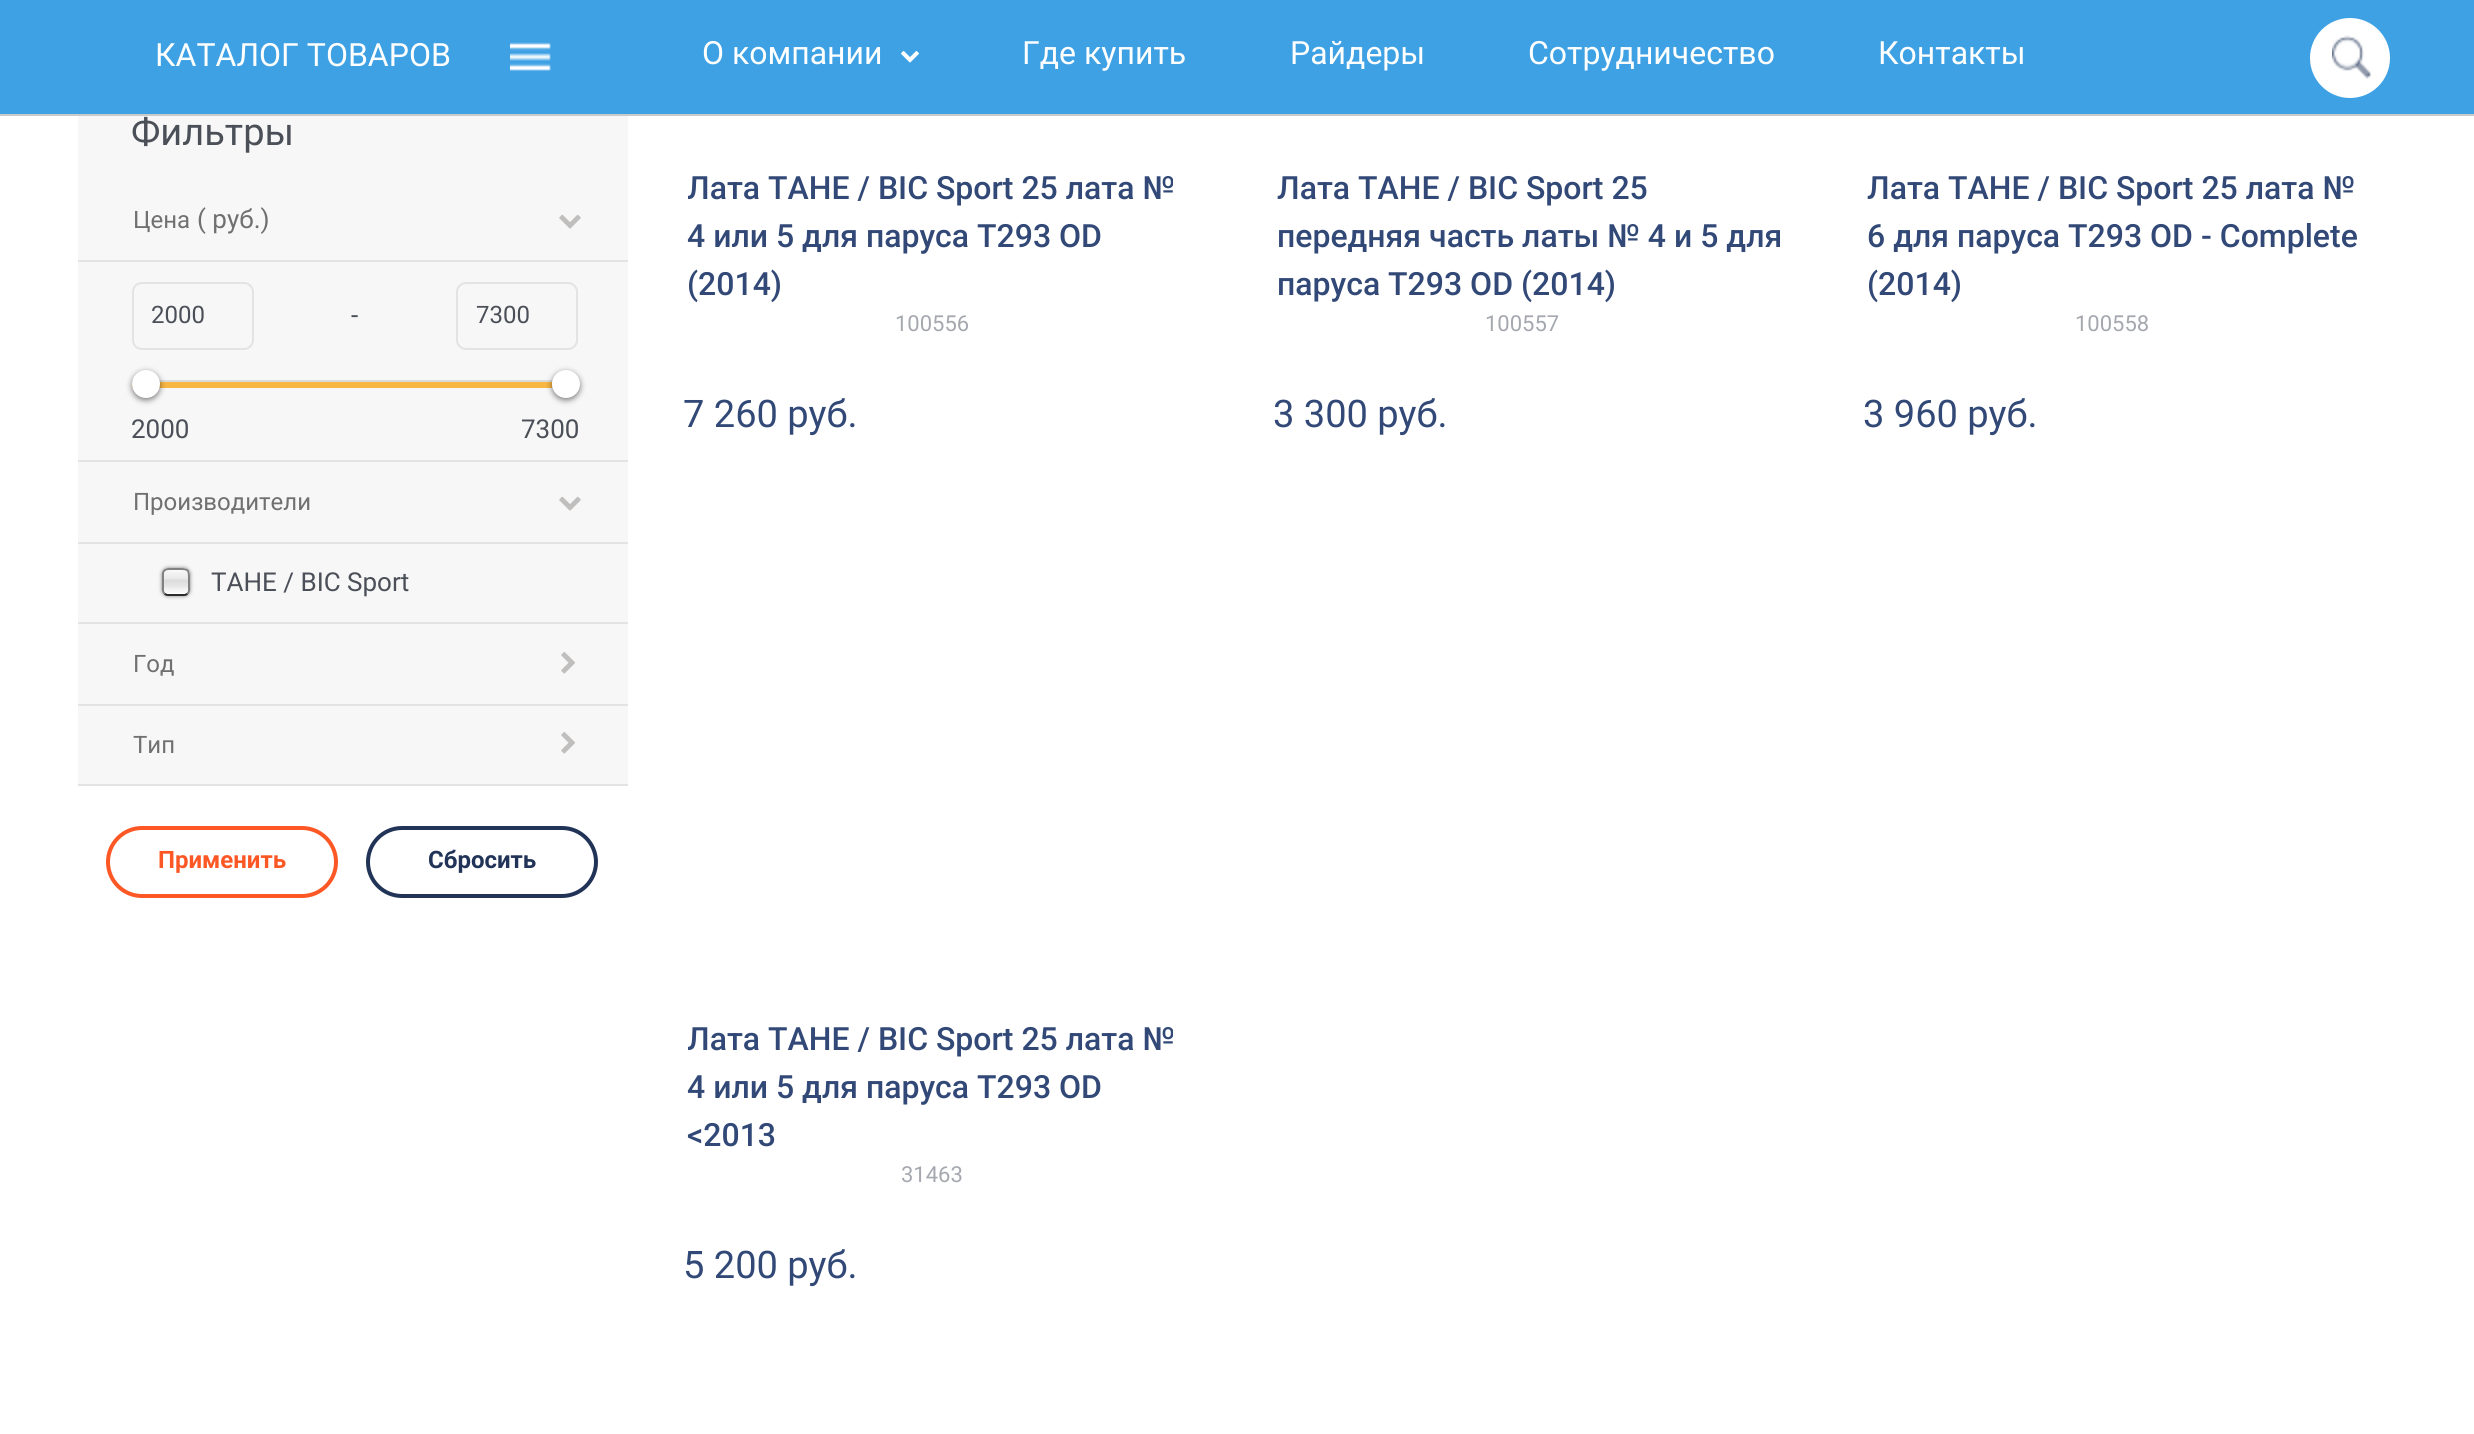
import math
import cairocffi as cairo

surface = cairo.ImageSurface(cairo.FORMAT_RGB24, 2474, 1434)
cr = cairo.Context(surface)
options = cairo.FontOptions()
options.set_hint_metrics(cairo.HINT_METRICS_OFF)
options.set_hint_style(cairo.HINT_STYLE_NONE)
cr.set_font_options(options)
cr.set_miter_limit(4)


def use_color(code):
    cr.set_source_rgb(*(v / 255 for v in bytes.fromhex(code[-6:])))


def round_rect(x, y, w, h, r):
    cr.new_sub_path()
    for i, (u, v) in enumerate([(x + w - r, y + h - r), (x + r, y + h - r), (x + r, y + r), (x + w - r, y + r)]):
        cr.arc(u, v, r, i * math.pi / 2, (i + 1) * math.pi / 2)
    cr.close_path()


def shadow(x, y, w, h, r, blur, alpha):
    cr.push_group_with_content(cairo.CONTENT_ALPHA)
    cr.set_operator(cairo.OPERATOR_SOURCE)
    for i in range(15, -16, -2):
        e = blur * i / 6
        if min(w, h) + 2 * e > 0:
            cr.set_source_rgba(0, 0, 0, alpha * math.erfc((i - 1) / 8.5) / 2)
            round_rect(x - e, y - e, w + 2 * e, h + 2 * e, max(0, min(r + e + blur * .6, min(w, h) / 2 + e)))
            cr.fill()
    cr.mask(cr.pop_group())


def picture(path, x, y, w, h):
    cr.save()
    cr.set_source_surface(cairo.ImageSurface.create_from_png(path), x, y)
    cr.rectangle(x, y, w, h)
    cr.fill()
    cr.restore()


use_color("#ffffff")
cr.paint()
use_color("#3ea1e4")
cr.rectangle(0, 0, 2474, 114)
cr.fill()
use_color("#cacaca")
cr.rectangle(0, 114, 2474, 2)
cr.fill()
cr.select_font_face("Roboto")
cr.set_font_size(32)
use_color("#ffffff")
cr.move_to(155, 66)
cr.show_text("КАТАЛОГ ТОВАРОВ")
picture("img1.png", 510, 42, 41, 29)
cr.move_to(702, 64)
cr.show_text("О компании")
picture("img2.png", 901, 51, 18, 12)
cr.move_to(1022, 64)
cr.show_text("Где купить")
cr.move_to(1290, 64)
cr.show_text("Райдеры")
cr.move_to(1528, 64)
cr.show_text("Сотрудничество")
cr.move_to(1878, 64)
cr.show_text("Контакты")
cr.new_path()
cr.arc(2350, 58, 40, 0, 2 * math.pi)
cr.fill()
picture("img3.png", 2332, 35, 40, 44)
use_color("#f7f7f7")
cr.rectangle(78, 116, 550, 668)
cr.fill()
cr.set_font_size(38)
use_color("#4b4f58")
cr.move_to(131, 145)
cr.show_text("Фильтры")
cr.set_font_size(24)
use_color("#707070")
cr.move_to(133, 228)
cr.show_text("Цена")
cr.set_font_size(26)
cr.move_to(197, 228)
cr.show_text("( руб.)")
picture("img4.png", 559, 214, 22, 15)
use_color("#e2e3e4")
cr.rectangle(78, 260, 550, 2)
cr.fill()
round_rect(133, 283, 120, 66, 9)
cr.stroke()
cr.set_font_size(24)
use_color("#4b4f58")
cr.move_to(151, 323)
cr.show_text("2000")
cr.set_font_size(26)
cr.move_to(351, 324)
cr.show_text("-")
round_rect(457, 283, 120, 66, 9)
use_color("#e2e3e4")
cr.stroke()
cr.set_font_size(24)
use_color("#4b4f58")
cr.move_to(476, 323)
cr.show_text("7300")
use_color("#dbdbdb")
cr.rectangle(132, 380, 420, 2)
cr.fill()
use_color("#f8b643")
cr.rectangle(132, 382, 420, 6)
cr.fill()
use_color("#000000")
shadow(132, 372, 28, 28, 14, 3, 0.5)
use_color("#ffffff")
cr.arc(146, 384, 14, 0, 2 * math.pi)
cr.fill()
use_color("#000000")
shadow(552, 372, 28, 28, 14, 3, 0.5)
use_color("#ffffff")
cr.arc(566, 384, 14, 0, 2 * math.pi)
cr.fill()
cr.set_font_size(26)
use_color("#4b4f58")
cr.move_to(131, 438)
cr.show_text("2000")
cr.move_to(521, 438)
cr.show_text("7300")
use_color("#e2e3e4")
cr.rectangle(78, 460, 550, 2)
cr.fill()
cr.set_font_size(24)
use_color("#707070")
cr.move_to(133, 510)
cr.show_text("Производители")
picture("img4.png", 559, 496, 22, 15)
use_color("#e2e3e4")
cr.rectangle(78, 542, 550, 2)
cr.fill()
use_color("#818181")
shadow(162, 568, 28, 28, 6, 2, 1)
cr.save()
round_rect(162, 568, 28, 28, 6)
cr.clip()
gradient = cairo.LinearGradient(176, 546, 176, 570)
gradient.add_color_stop_rgba(0, 0.992, 0.992, 0.992, 1)
gradient.add_color_stop_rgba(0.11, 0.953, 0.953, 0.953, 1)
gradient.add_color_stop_rgba(0.33, 0.922, 0.922, 0.922, 1)
gradient.add_color_stop_rgba(0.44, 0.863, 0.863, 0.863, 1)
gradient.add_color_stop_rgba(0.67, 0.902, 0.902, 0.902, 1)
gradient.add_color_stop_rgba(0.78, 0.941, 0.941, 0.941, 1)
gradient.add_color_stop_rgba(0.89, 0.965, 0.965, 0.965, 1)
gradient.add_color_stop_rgba(1, 1, 1, 1, 1)
cr.set_source(gradient)
cr.rectangle(162, 568, 28, 2)
cr.fill()
gradient = cairo.LinearGradient(176, 570, 176, 594)
gradient.add_color_stop_rgba(0, 0.992, 0.992, 0.992, 1)
gradient.add_color_stop_rgba(0.11, 0.953, 0.953, 0.953, 1)
gradient.add_color_stop_rgba(0.33, 0.922, 0.922, 0.922, 1)
gradient.add_color_stop_rgba(0.44, 0.863, 0.863, 0.863, 1)
gradient.add_color_stop_rgba(0.67, 0.902, 0.902, 0.902, 1)
gradient.add_color_stop_rgba(0.78, 0.941, 0.941, 0.941, 1)
gradient.add_color_stop_rgba(0.89, 0.965, 0.965, 0.965, 1)
gradient.add_color_stop_rgba(1, 1, 1, 1, 1)
cr.set_source(gradient)
cr.rectangle(162, 570, 28, 24)
cr.fill()
cr.restore()
cr.new_path()
cr.move_to(187.5, 593.5)
cr.curve_to(186.5, 594.5, 185.5, 595, 184, 595)
cr.line_to(168, 595)
cr.curve_to(166.5, 595, 165.5, 594.5, 164.5, 593.5)
use_color("#2d2d2d")
cr.stroke()
cr.new_path()
cr.move_to(164.5, 593.5)
cr.curve_to(162.5, 592, 163, 589.5, 163, 587.5)
cr.line_to(163, 573)
cr.curve_to(164, 569, 167.5, 569, 170.5, 569)
cr.line_to(176, 569)
cr.curve_to(189.5, 569, 189, 568.5, 189, 582)
cr.line_to(189, 587.5)
cr.curve_to(189, 589.5, 189.5, 592, 187.5, 593.5)
use_color("#818181")
cr.stroke()
cr.set_font_size(26)
use_color("#4b4f58")
cr.move_to(211, 591)
cr.show_text("TAHE / BIC Sport")
use_color("#e2e3e4")
cr.rectangle(78, 622, 550, 2)
cr.fill()
cr.set_font_size(24)
use_color("#707070")
cr.move_to(133, 672)
cr.show_text("Год")
picture("img5.png", 561, 652, 14, 22)
use_color("#e2e3e4")
cr.rectangle(78, 704, 550, 2)
cr.fill()
use_color("#707070")
cr.move_to(133, 753)
cr.show_text("Тип")
picture("img5.png", 561, 732, 14, 22)
use_color("#e2e3e4")
cr.rectangle(78, 784, 550, 2)
cr.fill()
round_rect(108, 828, 228, 68, 34)
use_color("#fc5724")
cr.set_line_width(4)
cr.stroke()
cr.select_font_face("Roboto", cairo.FONT_SLANT_NORMAL, cairo.FONT_WEIGHT_BOLD)
cr.move_to(158, 868)
cr.show_text("Применить")
round_rect(368, 828, 228, 68, 34)
use_color("#213357")
cr.stroke()
cr.move_to(428, 868)
cr.show_text("Сбросить")
cr.save()
cr.rectangle(688, 164, 508, 144)
cr.clip()
cr.select_font_face("Roboto Medium")
cr.set_font_size(32)
use_color("#324977")
cr.move_to(687, 199)
cr.show_text("Лата TAHE / BIC Sport 25 лата №")
cr.restore()
cr.select_font_face("Roboto Medium")
cr.set_font_size(32)
use_color("#324977")
cr.move_to(687, 247)
cr.show_text("4 или 5 для паруса Т293 OD")
cr.move_to(687, 295)
cr.show_text("(2014)")
cr.select_font_face("Roboto")
cr.set_font_size(22)
use_color("#a5a8af")
cr.move_to(895, 331)
cr.show_text("100556")
cr.set_font_size(38)
use_color("#324977")
cr.move_to(683, 427)
cr.show_text("7 260 руб.")
cr.select_font_face("Roboto Medium")
cr.set_font_size(32)
cr.move_to(1277, 199)
cr.show_text("Лата TAHE / BIC Sport 25")
cr.move_to(1277, 247)
cr.show_text("передняя часть латы № 4 и 5 для")
cr.move_to(1277, 295)
cr.show_text("паруса Т293 OD (2014)")
cr.select_font_face("Roboto")
cr.set_font_size(22)
use_color("#a5a8af")
cr.move_to(1485, 331)
cr.show_text("100557")
cr.set_font_size(38)
use_color("#324977")
cr.move_to(1273, 427)
cr.show_text("3 300 руб.")
cr.select_font_face("Roboto Medium")
cr.set_font_size(32)
cr.move_to(1867, 199)
cr.show_text("Лата TAHE / BIC Sport 25 лата №")
cr.move_to(1867, 247)
cr.show_text("6 для паруса Т293 OD - Complete")
cr.move_to(1867, 295)
cr.show_text("(2014)")
cr.select_font_face("Roboto")
cr.set_font_size(22)
use_color("#a5a8af")
cr.move_to(2075, 331)
cr.show_text("100558")
cr.set_font_size(38)
use_color("#324977")
cr.move_to(1863, 427)
cr.show_text("3 960 руб.")
cr.save()
cr.rectangle(688, 1016, 508, 144)
cr.clip()
cr.select_font_face("Roboto Medium")
cr.set_font_size(32)
cr.move_to(687, 1050)
cr.show_text("Лата TAHE / BIC Sport 25 лата №")
cr.restore()
cr.select_font_face("Roboto Medium")
cr.set_font_size(32)
cr.move_to(687, 1098)
cr.show_text("4 или 5 для паруса T293 OD")
cr.move_to(687, 1146)
cr.show_text("<2013")
cr.select_font_face("Roboto")
cr.set_font_size(22)
use_color("#a5a8af")
cr.move_to(901, 1182)
cr.show_text("31463")
cr.set_font_size(38)
use_color("#324977")
cr.move_to(683, 1278)
cr.show_text("5 200 руб.")
surface.write_to_png("result.png")
